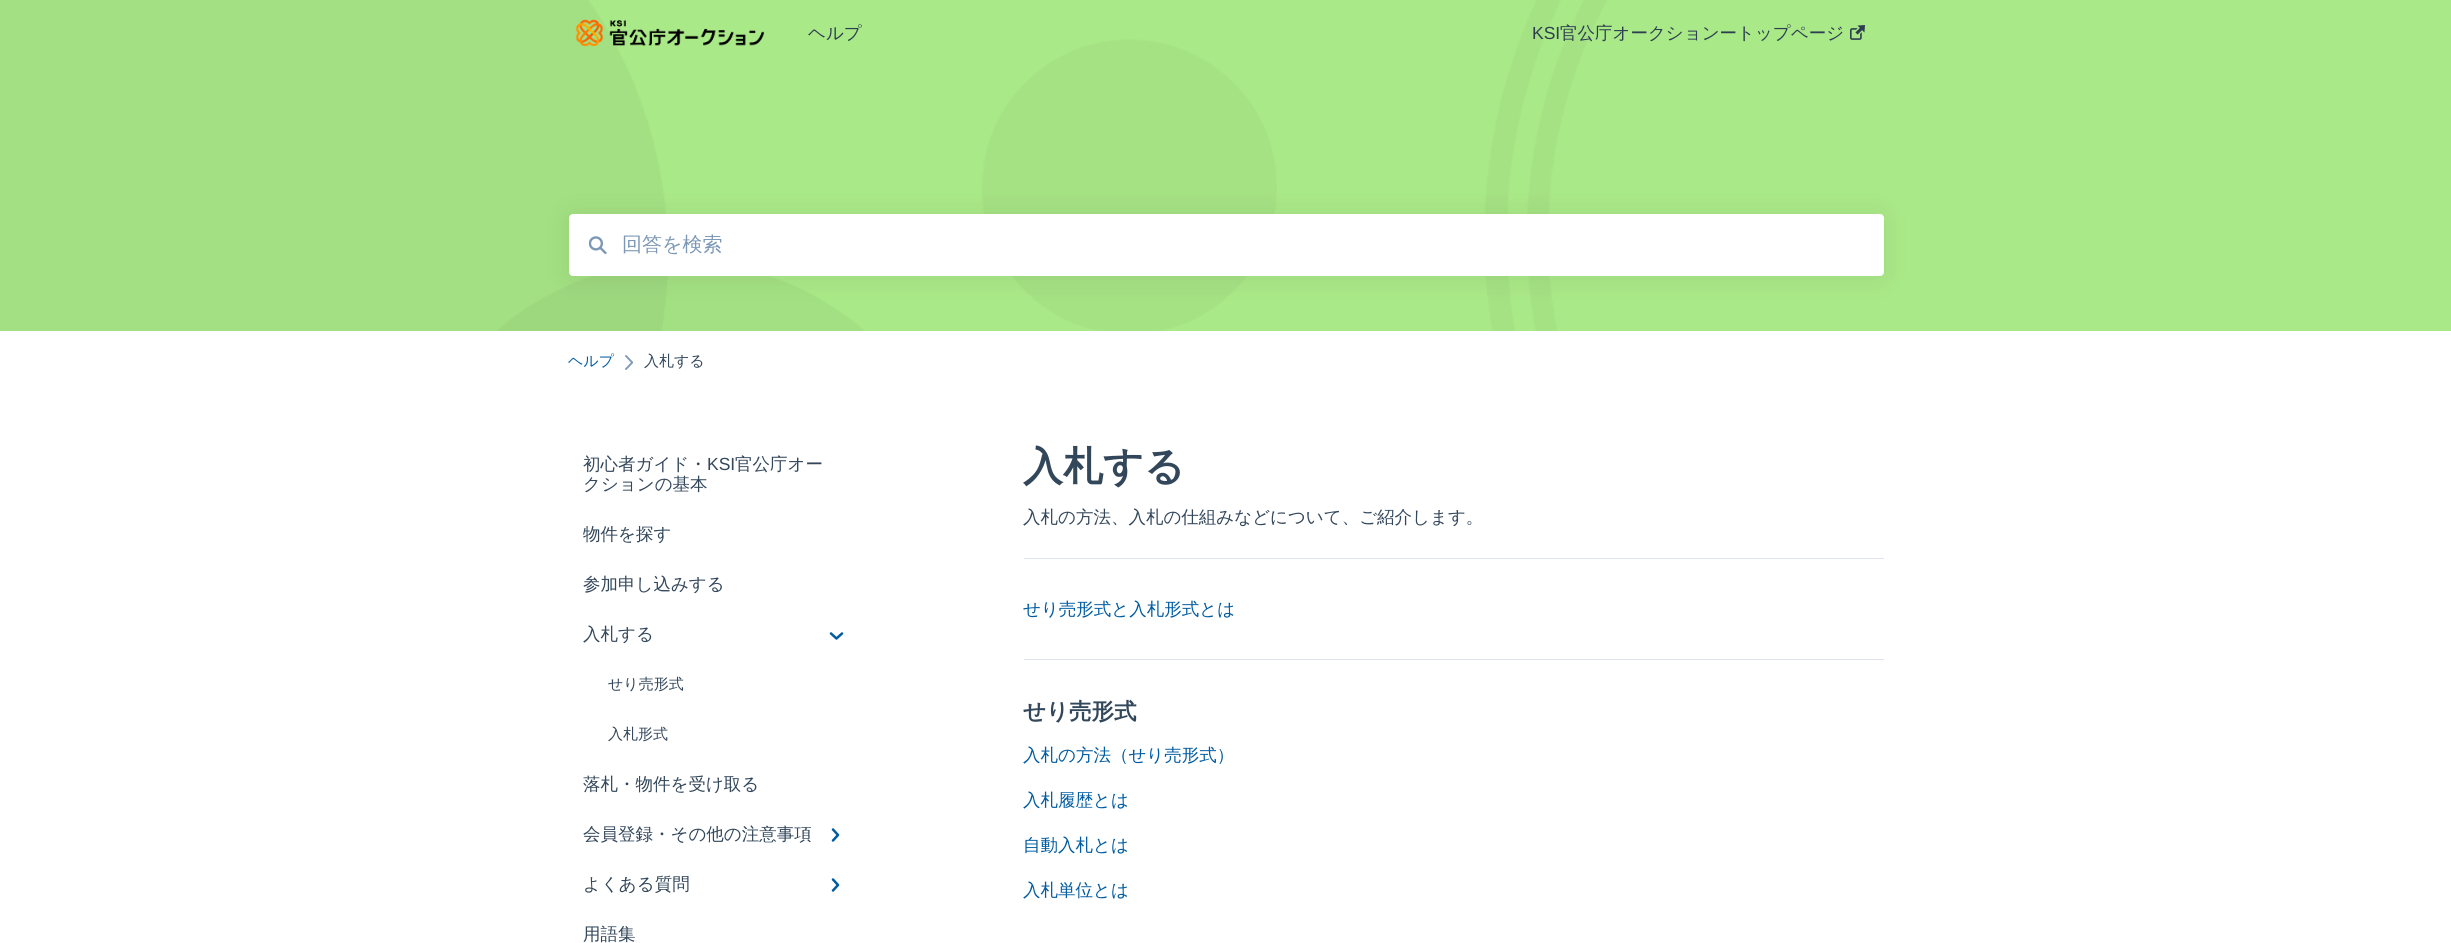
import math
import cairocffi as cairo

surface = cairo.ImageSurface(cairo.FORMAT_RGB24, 2451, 943)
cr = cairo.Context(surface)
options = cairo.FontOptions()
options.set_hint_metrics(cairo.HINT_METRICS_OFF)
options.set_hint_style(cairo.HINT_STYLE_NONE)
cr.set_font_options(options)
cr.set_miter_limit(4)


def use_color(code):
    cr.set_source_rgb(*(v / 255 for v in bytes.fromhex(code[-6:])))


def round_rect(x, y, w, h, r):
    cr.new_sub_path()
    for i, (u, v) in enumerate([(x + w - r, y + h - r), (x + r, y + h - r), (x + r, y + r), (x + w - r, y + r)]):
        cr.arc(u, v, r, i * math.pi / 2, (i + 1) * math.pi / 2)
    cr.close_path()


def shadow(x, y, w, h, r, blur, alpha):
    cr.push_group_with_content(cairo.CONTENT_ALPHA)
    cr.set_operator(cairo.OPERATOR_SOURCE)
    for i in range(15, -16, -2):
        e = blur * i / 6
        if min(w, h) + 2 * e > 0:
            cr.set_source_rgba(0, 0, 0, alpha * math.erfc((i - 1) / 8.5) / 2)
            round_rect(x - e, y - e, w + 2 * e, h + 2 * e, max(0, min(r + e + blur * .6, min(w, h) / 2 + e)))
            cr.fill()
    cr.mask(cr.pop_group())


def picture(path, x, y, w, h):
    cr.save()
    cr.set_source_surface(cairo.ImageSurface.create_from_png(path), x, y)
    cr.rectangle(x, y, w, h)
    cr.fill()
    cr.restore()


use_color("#ffffff")
cr.paint()
use_color("#aae988")
cr.rectangle(0, 0, 2451, 331)
cr.fill()
picture("img3.png", 0, 0, 1607, 331)
picture("img1.png", 575, 19, 190, 28)
cr.select_font_face("WenQuanYi Zen Hei Medium")
cr.set_font_size(17.5)
use_color("#2d3e50")
cr.move_to(808, 39)
cr.show_text("ヘルプ")
cr.select_font_face("Liberation Sans")
cr.move_to(1532, 39)
cr.show_text("KSI")
cr.select_font_face("WenQuanYi Zen Hei Medium")
cr.move_to(1560, 39)
cr.show_text("官公庁オークションートップページ")
picture("img2.png", 1850, 25, 15, 15)
use_color("#000000")
shadow(569, 215, 1315, 63, 4, 15, 0.08)
use_color("#ffffff")
round_rect(569, 214, 1315, 62, 4)
cr.fill()
picture("img4.png", 589, 236, 18, 19)
cr.set_font_size(20)
use_color("#7c98b6")
cr.move_to(622, 251)
cr.show_text("回答を検索")
cr.set_font_size(15)
use_color("#005ba1")
cr.move_to(568, 366)
cr.show_text("ヘルプ")
picture("img5.png", 625, 355, 9, 15)
use_color("#33475b")
cr.move_to(644, 366)
cr.show_text("入札する")
cr.set_font_size(17.5)
cr.move_to(583, 470)
cr.show_text("初心者ガイド・")
cr.select_font_face("Liberation Sans")
cr.move_to(707, 470)
cr.show_text("KSI")
cr.select_font_face("WenQuanYi Zen Hei Medium")
cr.move_to(735, 470)
cr.show_text("官公庁オー")
cr.move_to(583, 490)
cr.show_text("クションの基本")
cr.move_to(583, 540)
cr.show_text("物件を探す")
cr.move_to(583, 590)
cr.show_text("参加申し込みする")
cr.move_to(583, 640)
cr.show_text("入札する")
cr.new_path()
cr.move_to(842, 633.5)
cr.line_to(836.5, 638.5)
cr.line_to(831, 633.5)
use_color("#005ba1")
cr.set_line_width(2.5)
cr.set_line_cap(cairo.LINE_CAP_ROUND)
cr.set_line_join(cairo.LINE_JOIN_ROUND)
cr.stroke()
cr.set_font_size(15)
use_color("#33475b")
cr.move_to(608, 689)
cr.show_text("せり売形式")
cr.move_to(608, 739)
cr.show_text("入札形式")
cr.set_font_size(17.5)
cr.move_to(583, 790)
cr.show_text("落札・物件を受け取る")
cr.move_to(583, 840)
cr.show_text("会員登録・その他の注意事項")
cr.new_path()
cr.move_to(833, 829.5)
cr.line_to(838, 835)
cr.line_to(833, 840.5)
use_color("#005ba1")
cr.stroke()
use_color("#33475b")
cr.move_to(583, 890)
cr.show_text("よくある質問")
cr.new_path()
cr.move_to(833, 879.5)
cr.line_to(838, 885)
cr.line_to(833, 890.5)
use_color("#005ba1")
cr.stroke()
use_color("#33475b")
cr.move_to(583, 940)
cr.show_text("用語集")
cr.select_font_face("WenQuanYi Zen Hei", cairo.FONT_SLANT_NORMAL, cairo.FONT_WEIGHT_BOLD)
cr.set_font_size(40)
cr.move_to(1023, 480)
cr.show_text("入札する")
use_color("#dfe3eb")
cr.rectangle(1024, 558, 860, 1)
cr.fill()
cr.select_font_face("WenQuanYi Zen Hei Medium")
cr.set_font_size(17.5)
use_color("#33475b")
cr.move_to(1023, 523)
cr.show_text("入札の方法、入札の仕組みなどについて、ご紹介します。")
use_color("#dfe3eb")
cr.rectangle(1024, 659, 860, 1)
cr.fill()
use_color("#005ba1")
cr.move_to(1023, 615)
cr.show_text("せり売形式と入札形式とは")
cr.select_font_face("WenQuanYi Zen Hei", cairo.FONT_SLANT_NORMAL, cairo.FONT_WEIGHT_BOLD)
cr.set_font_size(22.5)
use_color("#33475b")
cr.move_to(1023, 719)
cr.show_text("せり売形式")
cr.select_font_face("WenQuanYi Zen Hei Medium")
cr.set_font_size(17.5)
use_color("#005ba1")
cr.move_to(1023, 761)
cr.show_text("入札の方法（せり売形式）")
cr.move_to(1023, 806)
cr.show_text("入札履歴とは")
cr.move_to(1023, 851)
cr.show_text("自動入札とは")
cr.move_to(1023, 896)
cr.show_text("入札単位とは")
surface.write_to_png("result.png")
